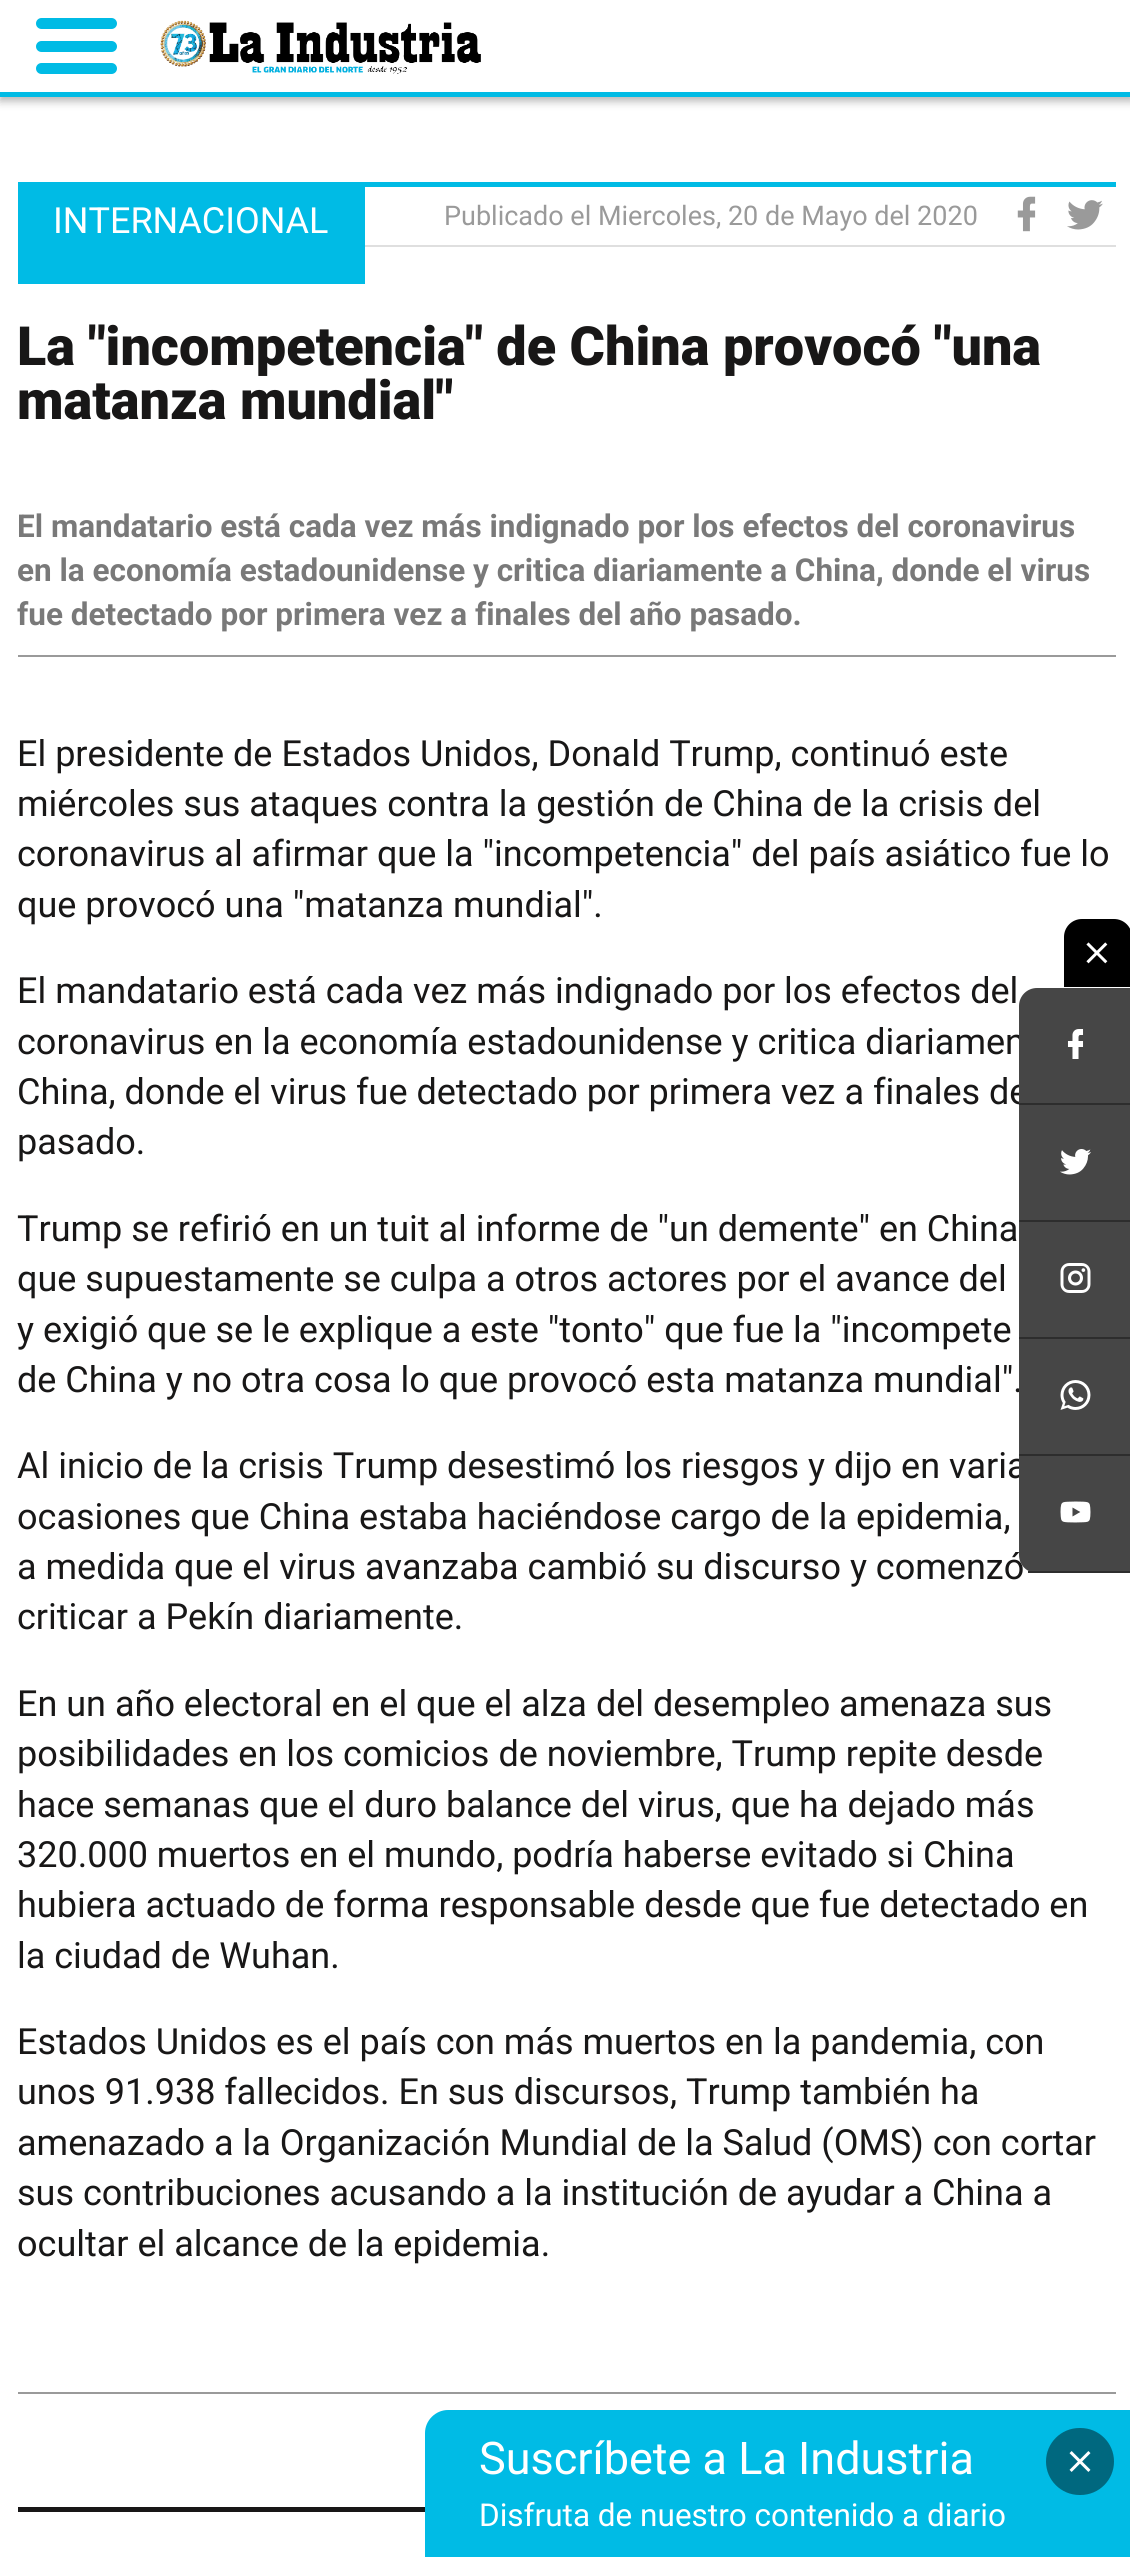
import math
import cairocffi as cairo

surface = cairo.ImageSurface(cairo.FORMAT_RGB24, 1130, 2557)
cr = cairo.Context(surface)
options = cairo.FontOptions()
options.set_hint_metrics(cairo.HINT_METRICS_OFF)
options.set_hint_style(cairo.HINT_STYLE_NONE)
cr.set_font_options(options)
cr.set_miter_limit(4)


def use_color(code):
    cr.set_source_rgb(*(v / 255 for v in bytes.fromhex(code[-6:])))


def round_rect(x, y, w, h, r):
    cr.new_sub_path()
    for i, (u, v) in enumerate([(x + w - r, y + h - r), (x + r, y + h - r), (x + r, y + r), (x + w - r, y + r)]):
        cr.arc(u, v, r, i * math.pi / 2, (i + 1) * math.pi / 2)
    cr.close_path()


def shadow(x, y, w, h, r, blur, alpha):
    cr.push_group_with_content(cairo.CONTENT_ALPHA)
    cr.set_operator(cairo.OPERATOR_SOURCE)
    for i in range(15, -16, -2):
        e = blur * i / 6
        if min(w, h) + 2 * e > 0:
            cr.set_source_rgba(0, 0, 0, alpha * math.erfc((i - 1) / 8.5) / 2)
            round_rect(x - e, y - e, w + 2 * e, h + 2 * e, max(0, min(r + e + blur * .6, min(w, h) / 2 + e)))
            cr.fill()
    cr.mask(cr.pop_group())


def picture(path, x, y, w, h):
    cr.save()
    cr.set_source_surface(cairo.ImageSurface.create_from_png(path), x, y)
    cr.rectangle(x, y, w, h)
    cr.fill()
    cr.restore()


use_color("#ffffff")
cr.paint()
use_color("#000000")
shadow(0, 5, 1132, 96, 0, 4.5, 0.3)
use_color("#ffffff")
cr.rectangle(0, 0, 1130, 92)
cr.fill()
use_color("#00bbe5")
cr.rectangle(0, 92, 1130, 5)
cr.fill()
round_rect(36, 18, 81, 11, 5.5)
cr.fill()
round_rect(36, 41, 81, 11, 5.5)
cr.fill()
round_rect(36, 63, 81, 11, 5.5)
cr.fill()
picture("img1.png", 160, 20, 321, 54)
cr.rectangle(18, 182, 1098, 5)
cr.fill()
cr.rectangle(18, 187, 347, 97)
cr.fill()
cr.select_font_face("Roboto")
cr.set_font_size(36)
use_color("#ffffff")
cr.move_to(53, 233)
cr.show_text("INTERNACIONAL")
use_color("#dfdfdf")
cr.rectangle(365, 245, 751, 2)
cr.fill()
cr.set_font_size(27)
use_color("#9a9a9a")
cr.move_to(444, 225)
cr.show_text("Publicado el Miercoles, 20 de Mayo del 2020")
picture("img2.png", 1017, 196, 19, 36)
picture("img3.png", 1067, 200, 36, 30)
cr.select_font_face("Roboto Black")
cr.set_font_size(54)
use_color("#181717")
cr.move_to(17, 365)
cr.show_text("La \"incompetencia\" de China provocó \"una")
cr.move_to(17, 419)
cr.show_text("matanza mundial\"")
use_color("#9a9a9a")
cr.rectangle(18, 655, 1098, 2)
cr.fill()
cr.select_font_face("Roboto", cairo.FONT_SLANT_NORMAL, cairo.FONT_WEIGHT_BOLD)
cr.set_font_size(31.5)
use_color("#797979")
cr.move_to(17, 537)
cr.show_text("El mandatario está cada vez más indignado por los efectos del coronavirus")
cr.move_to(17, 581)
cr.show_text("en la economía estadounidense y critica diariamente a China, donde el virus")
cr.move_to(17, 625)
cr.show_text("fue detectado por primera vez a finales del año pasado.")
cr.select_font_face("Roboto")
cr.set_font_size(36)
use_color("#181717")
cr.move_to(17, 766)
cr.show_text("El presidente de Estados Unidos, Donald Trump, continuó este")
cr.move_to(17, 816)
cr.show_text("miércoles sus ataques contra la gestión de China de la crisis del")
cr.move_to(17, 866)
cr.show_text("coronavirus al afirmar que la \"incompetencia\" del país asiático fue lo")
cr.move_to(17, 917)
cr.show_text("que provocó una \"matanza mundial\".")
cr.move_to(17, 1003)
cr.show_text("El mandatario está cada vez más indignado por los efectos del")
cr.move_to(17, 1054)
cr.show_text("coronavirus en la economía estadounidense y critica diariamen")
cr.move_to(17, 1104)
cr.show_text("China, donde el virus fue detectado por primera vez a finales de")
cr.move_to(17, 1154)
cr.show_text("pasado.")
cr.move_to(17, 1241)
cr.show_text("Trump se refirió en un tuit al informe de \"un demente\" en China")
cr.move_to(17, 1291)
cr.show_text("que supuestamente se culpa a otros actores por el avance del")
cr.move_to(17, 1342)
cr.show_text("y exigió que se le explique a este \"tonto\" que fue la \"incompete")
cr.move_to(17, 1392)
cr.show_text("de China y no otra cosa lo que provocó esta matanza mundial\".")
cr.move_to(17, 1478)
cr.show_text("Al inicio de la crisis Trump desestimó los riesgos y dijo en varia")
cr.move_to(17, 1529)
cr.show_text("ocasiones que China estaba haciéndose cargo de la epidemia,")
cr.move_to(17, 1579)
cr.show_text("a medida que el virus avanzaba cambió su discurso y comenzó")
cr.move_to(17, 1629)
cr.show_text("criticar a Pekín diariamente.")
cr.move_to(17, 1716)
cr.show_text("En un año electoral en el que el alza del desempleo amenaza sus")
cr.move_to(17, 1766)
cr.show_text("posibilidades en los comicios de noviembre, Trump repite desde")
cr.move_to(17, 1817)
cr.show_text("hace semanas que el duro balance del virus, que ha dejado más")
cr.move_to(17, 1867)
cr.show_text("320.000 muertos en el mundo, podría haberse evitado si China")
cr.move_to(17, 1917)
cr.show_text("hubiera actuado de forma responsable desde que fue detectado en")
cr.move_to(17, 1968)
cr.show_text("la ciudad de Wuhan.")
cr.move_to(17, 2054)
cr.show_text("Estados Unidos es el país con más muertos en la pandemia, con")
cr.move_to(17, 2104)
cr.show_text("unos 91.938 fallecidos. En sus discursos, Trump también ha")
cr.move_to(17, 2155)
cr.show_text("amenazado a la Organización Mundial de la Salud (OMS) con cortar")
cr.move_to(17, 2205)
cr.show_text("sus contribuciones acusando a la institución de ayudar a China a")
cr.move_to(17, 2256)
cr.show_text("ocultar el alcance de la epidemia.")
use_color("#9a9a9a")
cr.rectangle(18, 2392, 1098, 2)
cr.fill()
use_color("#181717")
cr.rectangle(18, 2507, 407, 5)
cr.fill()
use_color("#000000")
cr.new_path()
cr.move_to(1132, 937)
cr.line_to(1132, 987)
cr.line_to(1064, 987)
cr.line_to(1064, 937)
cr.curve_to(1064, 927, 1072, 919, 1082, 919)
cr.line_to(1114, 919)
cr.curve_to(1124, 919, 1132, 927, 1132, 937)
cr.close_path()
cr.fill()
picture("img4.png", 1086, 942, 22, 22)
use_color("#464646")
cr.new_path()
cr.move_to(1037, 988)
cr.line_to(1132, 988)
cr.line_to(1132, 1105)
cr.line_to(1019, 1105)
cr.line_to(1019, 1006)
cr.curve_to(1019, 996, 1027, 988, 1037, 988)
cr.close_path()
cr.fill()
use_color("#2d2d2d")
cr.rectangle(1019, 1103, 111, 2)
cr.fill()
picture("img5.png", 1067, 1029, 17, 30)
use_color("#464646")
cr.rectangle(1019, 1105, 111, 115)
cr.fill()
use_color("#2d2d2d")
cr.rectangle(1019, 1220, 111, 2)
cr.fill()
picture("img6.png", 1060, 1149, 31, 26)
use_color("#464646")
cr.rectangle(1019, 1222, 111, 115)
cr.fill()
use_color("#2d2d2d")
cr.rectangle(1019, 1337, 111, 2)
cr.fill()
picture("img7.png", 1060, 1263, 31, 30)
use_color("#464646")
cr.rectangle(1019, 1339, 111, 115)
cr.fill()
use_color("#2d2d2d")
cr.rectangle(1019, 1454, 111, 2)
cr.fill()
picture("img8.png", 1060, 1380, 31, 30)
use_color("#464646")
cr.new_path()
cr.move_to(1019, 1456)
cr.line_to(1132, 1456)
cr.line_to(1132, 1573)
cr.line_to(1037, 1573)
cr.curve_to(1027, 1573, 1019, 1565, 1019, 1555)
cr.close_path()
cr.fill()
use_color("#2d2d2d")
cr.rectangle(1028, 1571, 102, 2)
cr.fill()
picture("img9.png", 1060, 1501, 31, 22)
use_color("#00bbe5")
cr.new_path()
cr.move_to(448, 2410)
cr.line_to(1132, 2410)
cr.line_to(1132, 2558)
cr.line_to(425, 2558)
cr.line_to(425, 2433)
cr.curve_to(425, 2420.5, 435.5, 2410, 448, 2410)
cr.close_path()
cr.fill()
cr.set_font_size(45)
use_color("#ffffff")
cr.move_to(479, 2474)
cr.show_text("Suscríbete a La Industria")
cr.set_font_size(31.5)
cr.move_to(479, 2526)
cr.show_text("Disfruta de nuestro contenido a diario")
use_color("#00687f")
round_rect(1046, 2428, 68, 67, 33.5)
cr.fill()
picture("img10.png", 1069, 2451, 22, 21)
surface.write_to_png("result.png")
